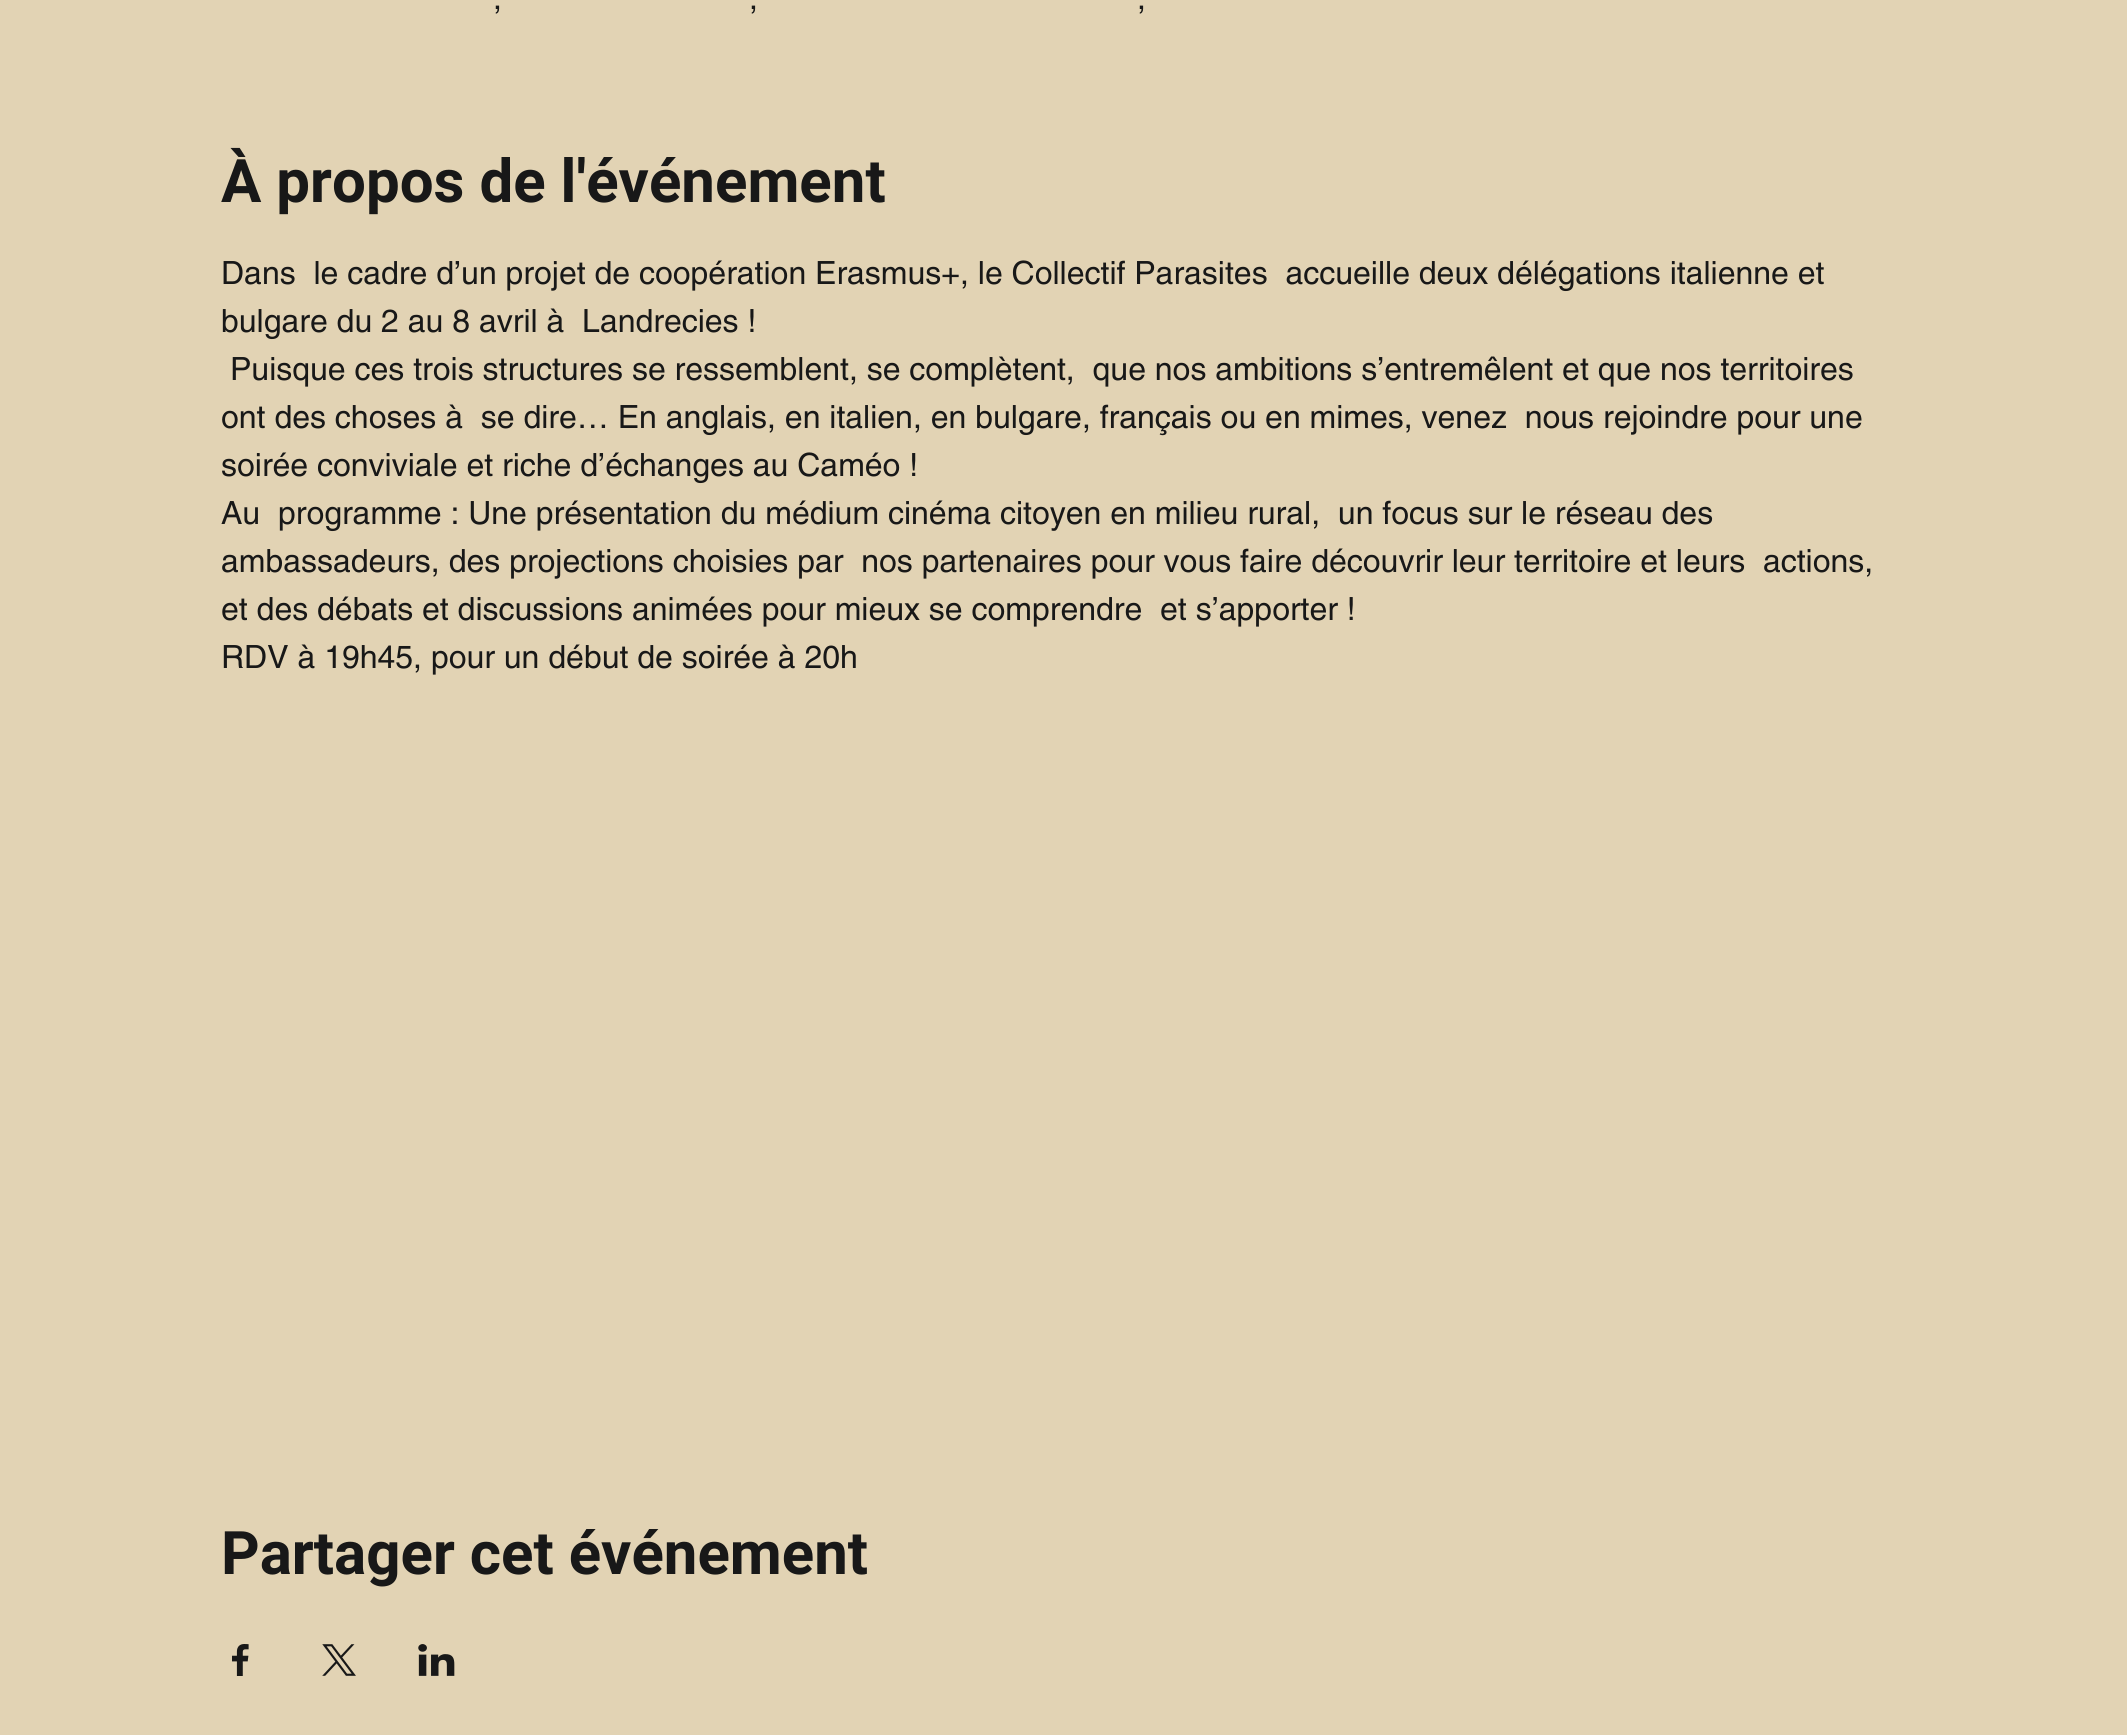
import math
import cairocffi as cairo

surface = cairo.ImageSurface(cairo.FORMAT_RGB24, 2127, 1735)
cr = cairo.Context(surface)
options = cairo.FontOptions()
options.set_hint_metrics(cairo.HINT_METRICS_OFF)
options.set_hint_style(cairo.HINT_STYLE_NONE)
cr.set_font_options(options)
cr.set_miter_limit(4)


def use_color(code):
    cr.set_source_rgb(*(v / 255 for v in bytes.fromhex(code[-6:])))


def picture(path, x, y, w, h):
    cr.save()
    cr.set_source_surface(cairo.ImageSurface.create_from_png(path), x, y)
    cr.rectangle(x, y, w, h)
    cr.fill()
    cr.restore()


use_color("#e2d3b4")
cr.paint()
cr.select_font_face("helvetica")
cr.set_font_size(32)
use_color("#181818")
cr.move_to(493, 9)
cr.show_text(",")
cr.move_to(749, 9)
cr.show_text(",")
cr.move_to(1137, 9)
cr.show_text(",")
cr.select_font_face("Roboto", cairo.FONT_SLANT_NORMAL, cairo.FONT_WEIGHT_BOLD)
cr.set_font_size(60)
cr.move_to(221, 202)
cr.show_text("À propos de l'événement")
cr.select_font_face("helvetica")
cr.set_font_size(32)
cr.move_to(221, 284)
cr.show_text("Dans  le cadre d’un projet de coopération Erasmus+, le Collectif Parasites  accueille deux délégations italienne et")
cr.move_to(221, 332)
cr.show_text("bulgare du 2 au 8 avril à  Landrecies !")
cr.move_to(230, 380)
cr.show_text("Puisque ces trois structures se ressemblent, se complètent,  que nos ambitions s’entremêlent et que nos territoires")
cr.move_to(221, 428)
cr.show_text("ont des choses à  se dire… En anglais, en italien, en bulgare, français ou en mimes, venez  nous rejoindre pour une")
cr.move_to(221, 476)
cr.show_text("soirée conviviale et riche d’échanges au Caméo !")
cr.move_to(221, 524)
cr.show_text("Au  programme : Une présentation du médium cinéma citoyen en milieu rural,  un focus sur le réseau des")
cr.move_to(221, 572)
cr.show_text("ambassadeurs, des projections choisies par  nos partenaires pour vous faire découvrir leur territoire et leurs  actions,")
cr.move_to(221, 620)
cr.show_text("et des débats et discussions animées pour mieux se comprendre  et s’apporter !")
cr.move_to(221, 668)
cr.show_text("RDV à 19h45, pour un début de soirée à 20h")
cr.select_font_face("Roboto", cairo.FONT_SLANT_NORMAL, cairo.FONT_WEIGHT_BOLD)
cr.set_font_size(60)
cr.move_to(221, 1574)
cr.show_text("Partager cet événement")
picture("img1.png", 232, 1644, 17, 32)
picture("img2.png", 322, 1644, 34, 32)
picture("img3.png", 418, 1644, 37, 32)
surface.write_to_png("result.png")
